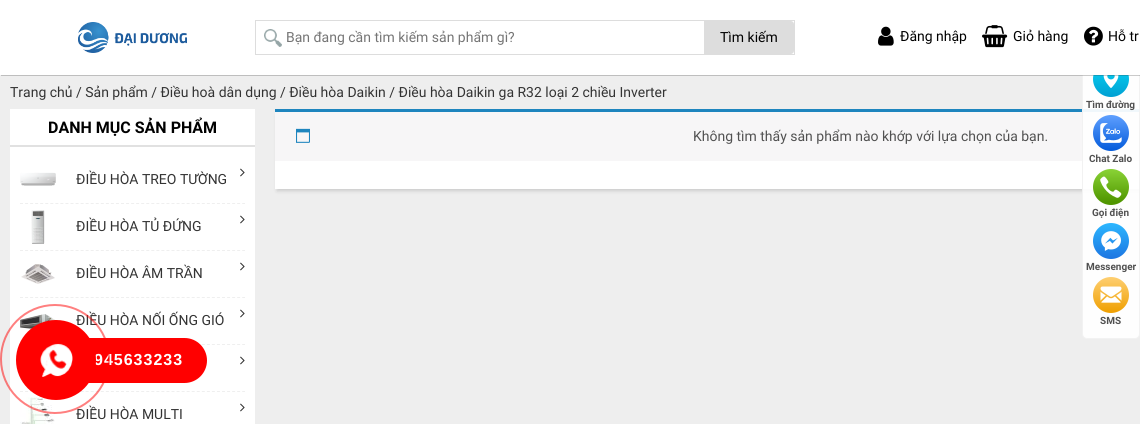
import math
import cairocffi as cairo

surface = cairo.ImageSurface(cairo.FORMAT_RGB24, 1140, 424)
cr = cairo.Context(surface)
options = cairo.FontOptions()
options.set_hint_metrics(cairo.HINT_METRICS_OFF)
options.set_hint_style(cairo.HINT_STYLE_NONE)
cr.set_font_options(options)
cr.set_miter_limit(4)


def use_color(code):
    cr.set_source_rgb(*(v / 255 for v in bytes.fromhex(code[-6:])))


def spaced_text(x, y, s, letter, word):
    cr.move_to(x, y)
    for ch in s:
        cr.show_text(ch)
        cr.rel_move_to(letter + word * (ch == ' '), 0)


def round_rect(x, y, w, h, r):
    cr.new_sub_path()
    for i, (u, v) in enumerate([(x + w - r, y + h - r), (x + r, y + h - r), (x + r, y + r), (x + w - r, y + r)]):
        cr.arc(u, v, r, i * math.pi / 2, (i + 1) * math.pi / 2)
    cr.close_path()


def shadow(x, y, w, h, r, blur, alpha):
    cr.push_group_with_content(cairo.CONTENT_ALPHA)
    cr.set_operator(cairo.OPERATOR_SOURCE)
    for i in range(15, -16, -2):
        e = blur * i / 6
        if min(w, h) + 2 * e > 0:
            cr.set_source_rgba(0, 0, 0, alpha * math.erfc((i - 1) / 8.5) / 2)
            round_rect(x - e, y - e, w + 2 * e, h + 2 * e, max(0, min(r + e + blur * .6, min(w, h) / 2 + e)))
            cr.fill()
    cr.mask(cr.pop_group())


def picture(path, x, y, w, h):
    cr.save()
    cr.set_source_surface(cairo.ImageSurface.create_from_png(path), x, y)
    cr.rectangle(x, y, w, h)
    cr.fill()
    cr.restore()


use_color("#eeeeee")
cr.paint()
use_color("#000000")
shadow(277, 115, 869, 76, 0, 2, 0.15)
use_color("#ffffff")
cr.rectangle(275, 161, 864, 28)
cr.fill()
use_color("#f7f6f7")
cr.rectangle(275, 112, 864, 49)
cr.fill()
use_color("#1e85be")
cr.rectangle(275, 109, 865, 3)
cr.fill()
cr.set_source_rgba(1, 1, 1, 0.93)
round_rect(1082.5, 47.5, 57, 291, 4.5)
cr.fill_preserve()
use_color("#f2f2f2")
cr.set_line_width(1)
cr.stroke()
picture("img13.png", 1093, 75, 36, 22)
cr.set_source_rgba(0.2, 0.2, 0.2, 0.25)
cr.new_path()
cr.move_to(1, 75)
cr.line_to(1, 76)
cr.line_to(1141, 76)
cr.line_to(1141, 1)
cr.line_to(1140, 1)
cr.line_to(1140, 75)
cr.close_path()
cr.fill()
use_color("#ffffff")
cr.rectangle(0, 0, 1140, 75)
cr.fill()
picture("img1.png", 78, 22, 109, 31)
cr.rectangle(255.5, 20.5, 539, 34)
use_color("#dddddd")
cr.stroke()
picture("img2.png", 264, 29, 18, 18)
cr.select_font_face("Roboto")
cr.set_font_size(14)
use_color("#757575")
cr.move_to(286, 42)
cr.show_text("Bạn đang cần tìm kiếm sản phẩm gì?")
use_color("#dddddd")
cr.new_path()
cr.move_to(704, 21)
cr.line_to(791, 21)
cr.curve_to(792.5, 21, 794, 22.5, 794, 24)
cr.line_to(794, 51)
cr.curve_to(794, 52.5, 792.5, 54, 791, 54)
cr.line_to(704, 54)
cr.close_path()
cr.fill()
use_color("#000000")
cr.move_to(720, 42)
cr.show_text("Tìm kiếm")
picture("img3.png", 878, 26, 16, 20)
cr.move_to(900, 41)
cr.show_text("Đăng nhập")
picture("img4.png", 982, 25, 26, 23)
cr.move_to(1013, 41)
cr.show_text("Giỏ hàng")
picture("img5.png", 1084, 26, 19, 20)
cr.move_to(1108, 41)
cr.show_text("Hỗ tr")
use_color("#333333")
cr.move_to(10, 97)
cr.show_text("Trang chủ / Sản phẩm / Điều hoà dân dụng / Điều hòa Daikin / Điều hòa Daikin ga R32 loại 2 chiều Inverter")
use_color("#ffffff")
cr.rectangle(10, 109, 245, 36)
cr.fill()
use_color("#e1e1e1")
cr.rectangle(10, 145, 245, 2)
cr.fill()
cr.select_font_face("Roboto", cairo.FONT_SLANT_NORMAL, cairo.FONT_WEIGHT_BOLD)
cr.set_font_size(16)
use_color("#000000")
cr.move_to(48, 133)
cr.show_text("DANH MỤC SẢN PHẨM")
use_color("#ffffff")
cr.rectangle(10, 147, 245, 277)
cr.fill()
cr.new_path()
cr.move_to(20, 203.5)
cr.line_to(245, 203.5)
use_color("#efefef")
cr.set_dash([3, 2.05])
cr.stroke()
picture("img6.png", 20, 172, 36, 14)
cr.select_font_face("Roboto")
cr.set_font_size(14)
use_color("#333333")
cr.move_to(76, 184)
cr.show_text("ĐIỀU HÒA TREO TƯỜNG")
picture("img7.png", 240, 168, 5, 9)
cr.new_path()
cr.move_to(20, 250.5)
cr.line_to(245, 250.5)
use_color("#efefef")
cr.stroke()
picture("img8.png", 31, 210, 14, 34)
use_color("#333333")
cr.move_to(76, 231)
cr.show_text("ĐIỀU HÒA TỦ ĐỨNG")
picture("img7.png", 240, 215, 5, 9)
cr.new_path()
cr.move_to(20, 297.5)
cr.line_to(245, 297.5)
use_color("#efefef")
cr.stroke()
picture("img9.png", 21, 264, 34, 20)
use_color("#333333")
cr.move_to(76, 278)
cr.show_text("ĐIỀU HÒA ÂM TRẦN")
picture("img7.png", 240, 262, 5, 9)
cr.new_path()
cr.move_to(20, 344.5)
cr.line_to(245, 344.5)
use_color("#efefef")
cr.stroke()
picture("img10.png", 20, 314, 36, 15)
use_color("#333333")
cr.move_to(76, 325)
cr.show_text("ĐIỀU HÒA NỐI ỐNG GIÓ")
picture("img7.png", 240, 309, 5, 9)
cr.new_path()
cr.move_to(20, 391.5)
cr.line_to(245, 391.5)
use_color("#efefef")
cr.stroke()
picture("img7.png", 240, 356, 5, 9)
picture("img11.png", 20, 397, 35, 27)
use_color("#333333")
cr.move_to(76, 419)
cr.show_text("ĐIỀU HÒA MULTI")
picture("img7.png", 240, 403, 5, 9)
picture("img12.png", 296, 128, 14, 15)
use_color("#515151")
cr.move_to(693, 141)
cr.show_text("Không tìm thấy sản phẩm nào khớp với lựa chọn của bạn.")
cr.select_font_face("Roboto", cairo.FONT_SLANT_NORMAL, cairo.FONT_WEIGHT_BOLD)
cr.set_font_size(10)
cr.move_to(1086, 108)
cr.show_text("Tìm đường")
picture("img14.png", 1093, 115, 36, 36)
cr.move_to(1089, 162)
cr.show_text("Chat Zalo")
picture("img15.png", 1093, 169, 36, 36)
cr.move_to(1092, 216)
cr.show_text("Gọi điện")
picture("img16.png", 1093, 223, 36, 36)
cr.move_to(1086, 270)
cr.show_text("Messenger")
picture("img17.png", 1093, 277, 36, 36)
cr.move_to(1100, 324)
cr.show_text("SMS")
use_color("#ff0000")
round_rect(42, 338, 165, 45, 22.5)
cr.fill()
cr.select_font_face("Liberation Sans", cairo.FONT_SLANT_NORMAL, cairo.FONT_WEIGHT_BOLD)
cr.set_font_size(16)
use_color("#ffffff")
spaced_text(94, 365, "945633233", 1, 0)
cr.new_path()
cr.arc(55, 359, 54, 0, 2 * math.pi)
cr.set_source_rgba(1, 0, 0, 0.5)
cr.set_line_width(2)
cr.set_dash([])
cr.stroke()
use_color("#ff0000")
cr.arc(56, 360, 40, 0, 2 * math.pi)
cr.fill()
picture("img18.png", 40, 343, 33, 34)
surface.write_to_png("result.png")
